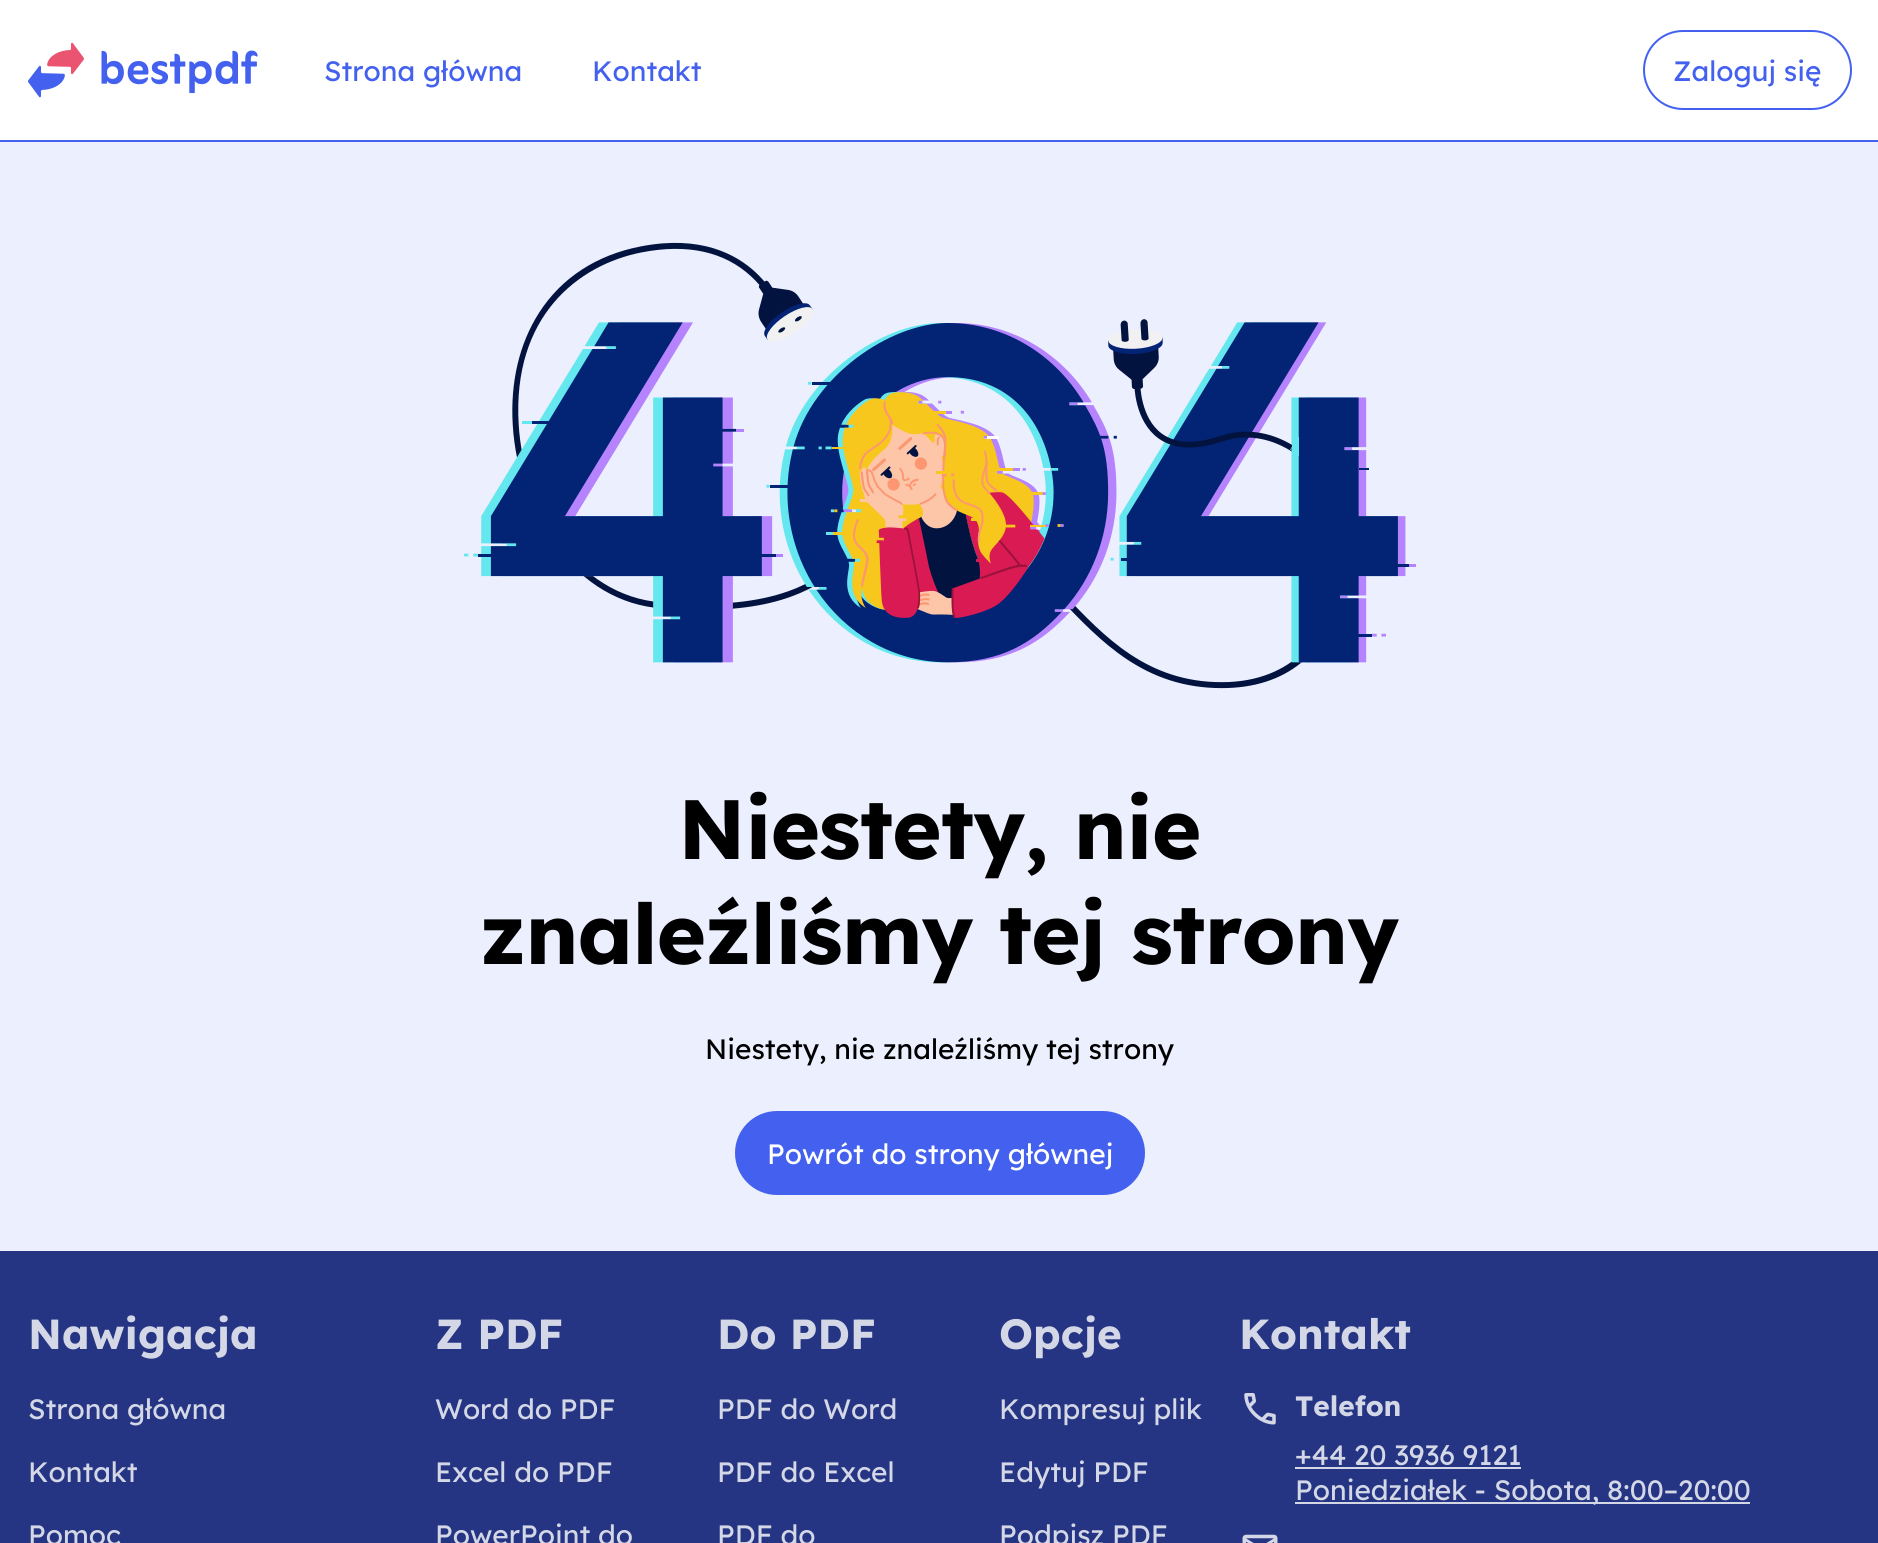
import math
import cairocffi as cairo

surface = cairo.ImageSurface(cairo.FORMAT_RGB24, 1878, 1543)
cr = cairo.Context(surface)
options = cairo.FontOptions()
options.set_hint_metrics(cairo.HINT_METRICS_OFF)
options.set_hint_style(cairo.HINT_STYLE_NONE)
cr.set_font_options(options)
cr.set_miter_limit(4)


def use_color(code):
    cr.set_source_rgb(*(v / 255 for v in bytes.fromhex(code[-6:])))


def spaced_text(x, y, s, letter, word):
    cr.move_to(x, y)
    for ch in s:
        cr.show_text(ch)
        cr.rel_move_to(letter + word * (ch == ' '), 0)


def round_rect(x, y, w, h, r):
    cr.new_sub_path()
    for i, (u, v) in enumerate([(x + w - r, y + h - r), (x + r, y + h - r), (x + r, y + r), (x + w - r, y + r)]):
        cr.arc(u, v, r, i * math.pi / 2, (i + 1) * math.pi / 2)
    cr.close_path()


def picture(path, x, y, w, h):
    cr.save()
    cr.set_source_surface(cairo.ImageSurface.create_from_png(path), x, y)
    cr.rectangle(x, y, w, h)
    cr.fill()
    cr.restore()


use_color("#eceffd")
cr.paint()
use_color("#ffffff")
cr.rectangle(0, 0, 1878, 140)
cr.fill()
use_color("#4361ee")
cr.rectangle(0, 140, 1878, 2)
cr.fill()
picture("img1.png", 28, 42, 230, 56)
cr.select_font_face("Lexend")
cr.set_font_size(28)
cr.move_to(324, 81)
cr.show_text("Strona główna")
cr.move_to(592, 81)
cr.show_text("Kontakt")
round_rect(1644, 31, 207, 78, 39)
cr.stroke()
cr.move_to(1673, 81)
cr.show_text("Zaloguj się")
picture("img2.png", 464, 242, 952, 447)
cr.select_font_face("Lexend", cairo.FONT_SLANT_NORMAL, cairo.FONT_WEIGHT_BOLD)
cr.set_font_size(84)
use_color("#000000")
spaced_text(678, 859, "Niestety, nie", -0.9, 0)
spaced_text(480, 964, "znaleźliśmy tej strony", -0.9, 0)
cr.select_font_face("Lexend")
cr.set_font_size(28)
cr.move_to(705, 1059)
cr.show_text("Niestety, nie znaleźliśmy tej strony")
use_color("#4361ee")
round_rect(737, 1113, 406, 80, 40)
cr.fill_preserve()
cr.set_line_width(4)
cr.stroke()
use_color("#ffffff")
cr.move_to(767, 1164)
cr.show_text("Powrót do strony głównej")
use_color("#253583")
cr.rectangle(0, 1251, 1878, 292)
cr.fill()
cr.select_font_face("Lexend", cairo.FONT_SLANT_NORMAL, cairo.FONT_WEIGHT_BOLD)
cr.set_font_size(42)
use_color("#d3d7e6")
cr.move_to(28, 1349)
cr.show_text("Nawigacja")
cr.select_font_face("Lexend")
cr.set_font_size(28)
cr.move_to(28, 1419)
cr.show_text("Strona główna")
cr.move_to(28, 1482)
cr.show_text("Kontakt")
cr.move_to(28, 1545)
cr.show_text("Pomoc")
cr.select_font_face("Lexend", cairo.FONT_SLANT_NORMAL, cairo.FONT_WEIGHT_BOLD)
cr.set_font_size(42)
cr.move_to(435, 1349)
cr.show_text("Z PDF")
cr.select_font_face("Lexend")
cr.set_font_size(28)
cr.move_to(435, 1419)
cr.show_text("Word do PDF")
cr.move_to(435, 1482)
cr.show_text("Excel do PDF")
cr.move_to(435, 1545)
cr.show_text("PowerPoint do")
cr.select_font_face("Lexend", cairo.FONT_SLANT_NORMAL, cairo.FONT_WEIGHT_BOLD)
cr.set_font_size(42)
cr.move_to(717, 1349)
cr.show_text("Do PDF")
cr.select_font_face("Lexend")
cr.set_font_size(28)
cr.move_to(717, 1419)
cr.show_text("PDF do Word")
cr.move_to(717, 1482)
cr.show_text("PDF do Excel")
cr.move_to(717, 1545)
cr.show_text("PDF do")
cr.select_font_face("Lexend", cairo.FONT_SLANT_NORMAL, cairo.FONT_WEIGHT_BOLD)
cr.set_font_size(42)
cr.move_to(999, 1349)
cr.show_text("Opcje")
cr.select_font_face("Lexend")
cr.set_font_size(28)
cr.move_to(999, 1419)
cr.show_text("Kompresuj plik")
cr.move_to(999, 1482)
cr.show_text("Edytuj PDF")
cr.move_to(999, 1545)
cr.show_text("Podpisz PDF")
cr.select_font_face("Lexend", cairo.FONT_SLANT_NORMAL, cairo.FONT_WEIGHT_BOLD)
cr.set_font_size(42)
cr.move_to(1239, 1349)
cr.show_text("Kontakt")
picture("img3.png", 1244, 1393, 32, 32)
cr.set_font_size(28)
cr.move_to(1295, 1416)
cr.show_text("Telefon")
cr.select_font_face("Lexend")
cr.move_to(1295, 1465)
cr.show_text("+44 20 3936 9121")
cr.rectangle(1295, 1467, 226, 2)
cr.fill()
cr.rectangle(1295, 1502, 455, 2)
cr.fill()
cr.move_to(1295, 1500)
cr.show_text("Poniedziałek - Sobota, 8:00–20:00")
picture("img4.png", 1242, 1534, 36, 9)
surface.write_to_png("result.png")
